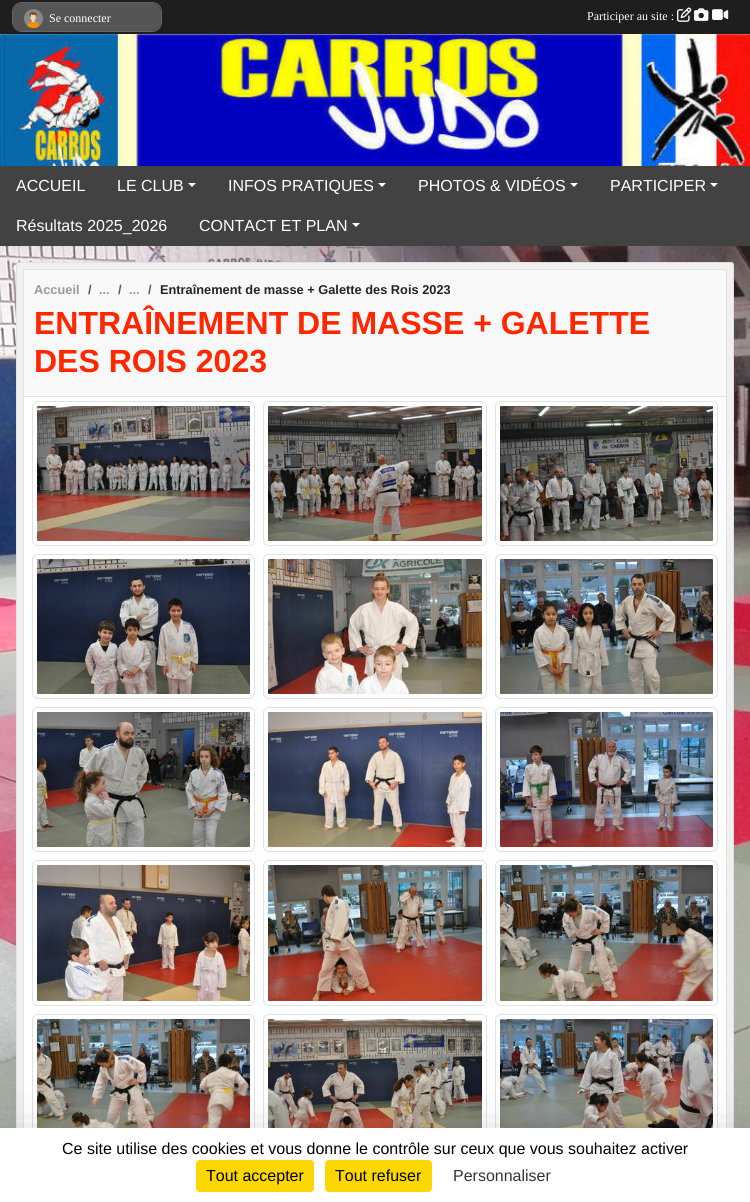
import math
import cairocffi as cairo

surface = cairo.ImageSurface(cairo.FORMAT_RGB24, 750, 1202)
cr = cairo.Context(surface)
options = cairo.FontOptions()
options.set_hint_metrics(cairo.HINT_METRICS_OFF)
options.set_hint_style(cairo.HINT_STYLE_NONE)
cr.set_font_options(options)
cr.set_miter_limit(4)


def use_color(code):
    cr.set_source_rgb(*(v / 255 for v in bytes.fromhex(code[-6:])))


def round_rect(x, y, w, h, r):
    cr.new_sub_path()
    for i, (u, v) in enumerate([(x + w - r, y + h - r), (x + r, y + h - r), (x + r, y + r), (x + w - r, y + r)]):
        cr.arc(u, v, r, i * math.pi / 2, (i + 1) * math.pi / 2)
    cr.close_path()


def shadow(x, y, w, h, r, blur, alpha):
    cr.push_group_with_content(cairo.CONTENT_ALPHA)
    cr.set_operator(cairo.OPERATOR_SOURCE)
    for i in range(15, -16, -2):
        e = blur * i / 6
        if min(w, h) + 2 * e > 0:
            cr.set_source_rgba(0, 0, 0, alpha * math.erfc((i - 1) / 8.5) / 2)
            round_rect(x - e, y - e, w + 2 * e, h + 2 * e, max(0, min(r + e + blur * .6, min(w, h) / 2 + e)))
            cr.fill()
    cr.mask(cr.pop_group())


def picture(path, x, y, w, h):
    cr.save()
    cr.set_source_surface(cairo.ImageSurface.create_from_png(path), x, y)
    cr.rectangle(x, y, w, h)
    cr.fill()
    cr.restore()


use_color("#ffffff")
cr.paint()
picture("img1.png", 0, 246, 750, 882)
use_color("#1e1e1e")
cr.rectangle(0, 0, 750, 34)
cr.fill()
round_rect(12.5, 2.5, 149, 29, 9.5)
use_color("#666666")
cr.set_line_width(1)
cr.stroke()
use_color("#555555")
round_rect(13, 3, 148, 28, 9)
cr.fill()
picture("img2.png", 24, 9, 19, 19)
cr.select_font_face("Liberation Serif")
cr.set_font_size(12)
use_color("#ffffff")
cr.move_to(49, 22)
cr.show_text("Se connecter")
cr.move_to(587, 20)
cr.show_text("Participer au site :")
picture("img3.png", 677, 7, 15, 15)
picture("img4.png", 694, 8, 15, 13)
picture("img5.png", 712, 9, 17, 11)
picture("img6.png", 0, 34, 750, 132)
use_color("#424242")
cr.rectangle(0, 166, 750, 80)
cr.fill()
cr.select_font_face("Liberation Sans")
cr.set_font_size(16)
use_color("#ffffff")
cr.move_to(16, 191)
cr.show_text("ACCUEIL")
cr.move_to(117, 191)
cr.show_text("LE CLUB")
cr.new_path()
cr.move_to(188, 183)
cr.line_to(196, 183)
cr.line_to(192, 187)
cr.close_path()
cr.fill()
cr.move_to(228, 191)
cr.show_text("INFOS PRATIQUES")
cr.new_path()
cr.move_to(378, 183)
cr.line_to(386, 183)
cr.line_to(382, 187)
cr.close_path()
cr.fill()
cr.move_to(418, 191)
cr.show_text("PHOTOS & VIDÉOS")
cr.new_path()
cr.move_to(570, 183)
cr.line_to(578, 183)
cr.line_to(574, 187)
cr.close_path()
cr.fill()
cr.move_to(610, 191)
cr.show_text("PARTICIPER")
cr.new_path()
cr.move_to(710, 183)
cr.line_to(718, 183)
cr.line_to(714, 187)
cr.close_path()
cr.fill()
cr.move_to(16, 231)
cr.show_text("Résultats 2025_2026")
cr.move_to(199, 231)
cr.show_text("CONTACT ET PLAN")
cr.new_path()
cr.move_to(352, 223)
cr.line_to(360, 223)
cr.line_to(356, 227)
cr.close_path()
cr.fill()
use_color("#f0f0f0")
round_rect(16.5, 262.5, 717, 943, 2.5)
cr.fill_preserve()
use_color("#e1e1e1")
cr.stroke()
use_color("#ffffff")
cr.rectangle(24, 397, 702, 731)
cr.fill()
cr.rectangle(23.5, 269.5, 703, 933)
use_color("#e1e1e1")
cr.stroke()
use_color("#f8f8f8")
cr.rectangle(24, 270, 702, 126)
cr.fill()
use_color("#e1e1e1")
cr.rectangle(24, 396, 702, 1)
cr.fill()
cr.select_font_face("Liberation Sans", cairo.FONT_SLANT_NORMAL, cairo.FONT_WEIGHT_BOLD)
cr.set_font_size(12.8)
use_color("#999999")
cr.move_to(34, 294)
cr.show_text("Accueil")
use_color("#575a5d")
cr.move_to(88, 294)
cr.show_text("/")
use_color("#999999")
cr.move_to(99, 294)
cr.show_text("...")
use_color("#575a5d")
cr.move_to(118, 294)
cr.show_text("/")
use_color("#999999")
cr.move_to(129, 294)
cr.show_text("...")
use_color("#575a5d")
cr.move_to(148, 294)
cr.show_text("/")
use_color("#212529")
cr.move_to(160, 294)
cr.show_text("Entraînement de masse + Galette des Rois 2023")
cr.set_font_size(32)
use_color("#ff2600")
cr.move_to(34, 334)
cr.show_text("ENTRAÎNEMENT DE MASSE + GALETTE")
cr.move_to(34, 372)
cr.show_text("DES ROIS 2023")
round_rect(32.5, 401.5, 222, 144, 5.5)
use_color("#dee2e6")
cr.stroke()
picture("img7.png", 37, 406, 213, 135)
round_rect(263.5, 401.5, 223, 144, 5.5)
cr.stroke()
picture("img8.png", 268, 406, 214, 135)
round_rect(495.5, 401.5, 222, 144, 5.5)
cr.stroke()
picture("img9.png", 500, 406, 213, 135)
round_rect(32.5, 554.5, 222, 144, 5.5)
cr.stroke()
picture("img10.png", 37, 559, 213, 135)
round_rect(263.5, 554.5, 223, 144, 5.5)
cr.stroke()
picture("img11.png", 268, 559, 214, 135)
round_rect(495.5, 554.5, 222, 144, 5.5)
cr.stroke()
picture("img12.png", 500, 559, 213, 135)
round_rect(32.5, 707.5, 222, 144, 5.5)
cr.stroke()
picture("img13.png", 37, 712, 213, 135)
round_rect(263.5, 707.5, 223, 144, 5.5)
cr.stroke()
picture("img14.png", 268, 712, 214, 135)
round_rect(495.5, 707.5, 222, 144, 5.5)
cr.stroke()
picture("img15.png", 500, 712, 213, 135)
round_rect(32.5, 860.5, 222, 145, 5.5)
cr.stroke()
picture("img16.png", 37, 865, 213, 136)
round_rect(263.5, 860.5, 223, 145, 5.5)
cr.stroke()
picture("img17.png", 268, 865, 214, 136)
round_rect(495.5, 860.5, 222, 145, 5.5)
cr.stroke()
picture("img18.png", 500, 865, 213, 136)
round_rect(32.5, 1014.5, 222, 144, 5.5)
cr.stroke()
picture("img19.png", 37, 1019, 213, 109)
round_rect(263.5, 1014.5, 223, 144, 5.5)
cr.stroke()
picture("img20.png", 268, 1019, 214, 109)
round_rect(495.5, 1014.5, 222, 144, 5.5)
cr.stroke()
picture("img21.png", 500, 1019, 213, 109)
use_color("#000000")
shadow(0, 1148, 750, 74, 0, 30, 0.25)
use_color("#ffffff")
cr.rectangle(0, 1128, 750, 74)
cr.fill()
cr.select_font_face("Liberation Sans")
cr.set_font_size(16)
use_color("#000000")
cr.move_to(62, 1154)
cr.show_text("Ce site utilise des cookies et vous donne le contrôle sur ceux que vous souhaitez activer")
use_color("#fbd600")
round_rect(196, 1160, 118, 32, 4)
cr.fill()
use_color("#000000")
cr.move_to(206, 1181)
cr.show_text("Tout accepter")
use_color("#fbd600")
round_rect(325, 1160, 107, 32, 4)
cr.fill()
use_color("#000000")
cr.move_to(335, 1181)
cr.show_text("Tout refuser")
use_color("#333333")
cr.move_to(453, 1181)
cr.show_text("Personnaliser")
surface.write_to_png("result.png")
